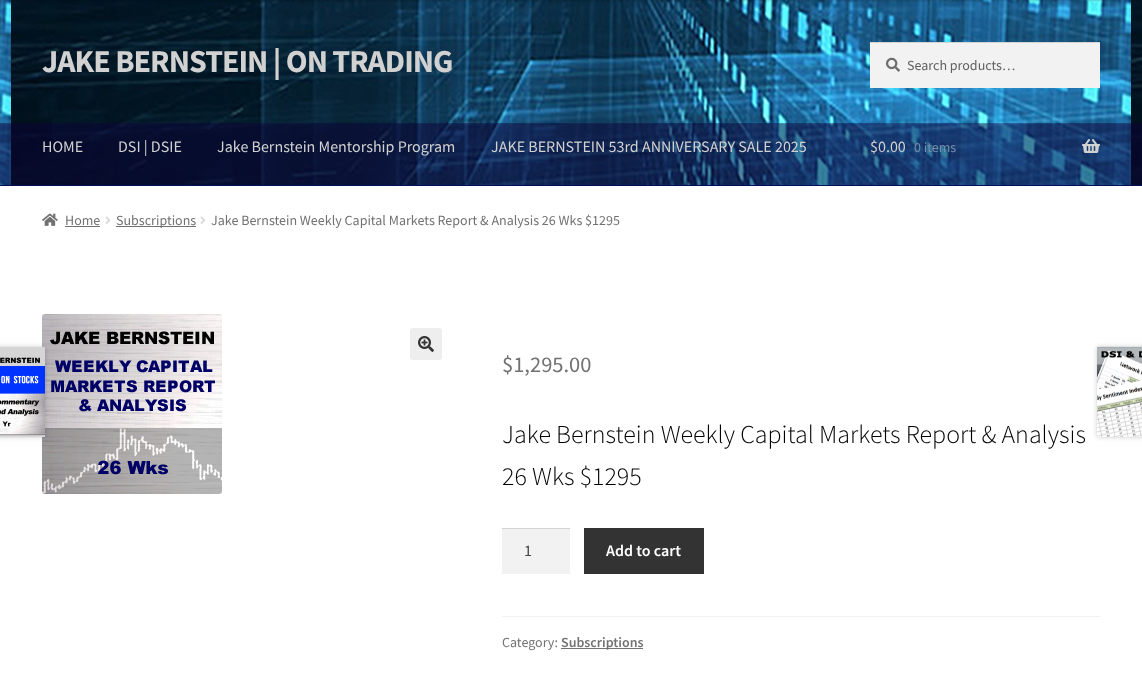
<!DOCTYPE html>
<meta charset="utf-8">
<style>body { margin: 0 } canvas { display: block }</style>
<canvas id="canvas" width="1142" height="693"></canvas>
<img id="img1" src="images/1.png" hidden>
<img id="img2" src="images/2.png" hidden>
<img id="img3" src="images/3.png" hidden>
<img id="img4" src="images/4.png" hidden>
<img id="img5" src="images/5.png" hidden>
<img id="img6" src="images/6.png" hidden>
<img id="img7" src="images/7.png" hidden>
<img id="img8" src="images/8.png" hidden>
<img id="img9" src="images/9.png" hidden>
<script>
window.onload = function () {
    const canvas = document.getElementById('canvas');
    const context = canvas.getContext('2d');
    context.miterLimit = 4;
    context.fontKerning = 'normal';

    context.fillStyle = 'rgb(255, 255, 255)';
    context.fillRect(0, 0, 1142, 693);
    context.drawImage(document.getElementById('img1'), 0, 0, 1142, 185);
    context.fillStyle = 'rgba(0, 0, 0, 0.2)';
    context.filter = 'blur(1px)';
    context.beginPath();
    context.rect(0, -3, 1142, 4);
    context.fill();
    context.filter = 'none';
    context.fillStyle = 'rgb(0, 17, 94)';
    context.fillRect(0, 185, 1142, 1);
    context.fillStyle = 'rgb(242, 242, 242)';
    context.fillRect(870, 43, 230, 45);
    context.drawImage(document.getElementById('img2'), 886, 57, 14, 15);
    context.fillStyle = 'rgb(212, 212, 212)';
    context.fillRect(870, 42, 230, 1);
    context.drawImage(document.getElementById('img3'), 1082, 139, 18, 14);
    context.drawImage(document.getElementById('img4'), 42, 213, 16, 13);
    context.fillStyle = 'rgb(114, 114, 114)';
    context.fillRect(65, 226, 35, 1);
    context.drawImage(document.getElementById('img5'), 105, 216, 6, 8);
    context.fillRect(116, 226, 80, 1);
    context.drawImage(document.getElementById('img5'), 200, 216, 6, 8);
    context.drawImage(document.getElementById('img6'), 42, 314, 180, 180);
    context.fillStyle = 'rgb(238, 238, 238)';
    context.beginPath();
    context.roundRect(410, 328, 32, 32, 3);
    context.fill();
    context.drawImage(document.getElementById('img7'), 418, 336, 16, 16);
    context.fillStyle = 'rgba(0, 0, 0, 0.2)';
    context.filter = 'blur(2.5px)';
    context.beginPath();
    context.rect(-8, 347, 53, 90);
    context.fill();
    context.filter = 'none';
    context.drawImage(document.getElementById('img8'), 0, 347, 45, 90);
    context.filter = 'blur(2.5px)';
    context.beginPath();
    context.rect(1097, 347, 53, 90);
    context.fill();
    context.filter = 'none';
    context.drawImage(document.getElementById('img9'), 1097, 346, 45, 91);
    context.fillStyle = 'rgb(242, 242, 242)';
    context.fillRect(502, 529, 68, 45);
    context.fillStyle = 'rgb(212, 212, 212)';
    context.fillRect(502, 528, 68, 1);
    context.fillStyle = 'rgb(51, 51, 51)';
    context.fillRect(584, 528, 120, 46);
    context.fillStyle = 'rgb(242, 242, 242)';
    context.fillRect(502, 616, 598, 1);
    context.fillStyle = 'rgb(114, 114, 114)';
    context.fillRect(561, 648, 82, 1);
    context.letterSpacing = '-1px';
    context.font = 'bold 32px Source Sans Pro';
    context.fillStyle = 'rgb(209, 209, 209)';
    context.fillText('JAKE BERNSTEIN | ON TRADING', 42, 72);
    context.letterSpacing = '0px';
    context.font = '14px Source Sans Pro';
    context.fillStyle = 'rgb(97, 97, 97)';
    context.fillText('Search products…', 907, 70);
    context.font = '16px Source Sans Pro';
    context.fillStyle = 'rgb(209, 209, 209)';
    context.fillText('HOME', 42, 152);
    context.fillText('DSI | DSIE', 118, 152);
    context.fillText('Jake Bernstein Mentorship Program', 217, 152);
    context.fillText('JAKE BERNSTEIN 53rd ANNIVERSARY SALE 2025', 491, 152);
    context.fillText('$0.00', 870, 152);
    context.font = '14px Source Sans Pro';
    context.fillStyle = 'rgb(119, 142, 167)';
    context.fillText('0 items', 914, 152);
    context.fillStyle = 'rgb(114, 114, 114)';
    context.fillText('Home', 65, 225);
    context.fillText('Subscriptions', 116, 225);
    context.fillText('Jake Bernstein Weekly Capital Markets Report & Analysis 26 Wks $1295', 211, 225);
    context.font = '22.5px Source Sans Pro';
    context.fillText('$1,295.00', 502, 372);
    context.font = '300 25.9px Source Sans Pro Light';
    context.fillStyle = 'rgb(0, 0, 0)';
    context.fillText('Jake Bernstein Weekly Capital Markets Report & Analysis', 502, 443);
    context.fillText('26 Wks $1295', 502, 485);
    context.font = '16px Source Sans Pro';
    context.fillStyle = 'rgb(67, 69, 75)';
    context.fillText('1', 524, 556);
    context.font = '600 16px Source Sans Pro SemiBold';
    context.fillStyle = 'rgb(255, 255, 255)';
    context.fillText('Add to cart', 606, 556);
    context.font = '14px Source Sans Pro';
    context.fillStyle = 'rgb(114, 114, 114)';
    context.fillText('Category:', 502, 647);
    context.font = '600 14px Source Sans Pro SemiBold';
    context.fillText('Subscriptions', 561, 647);
};
</script>
